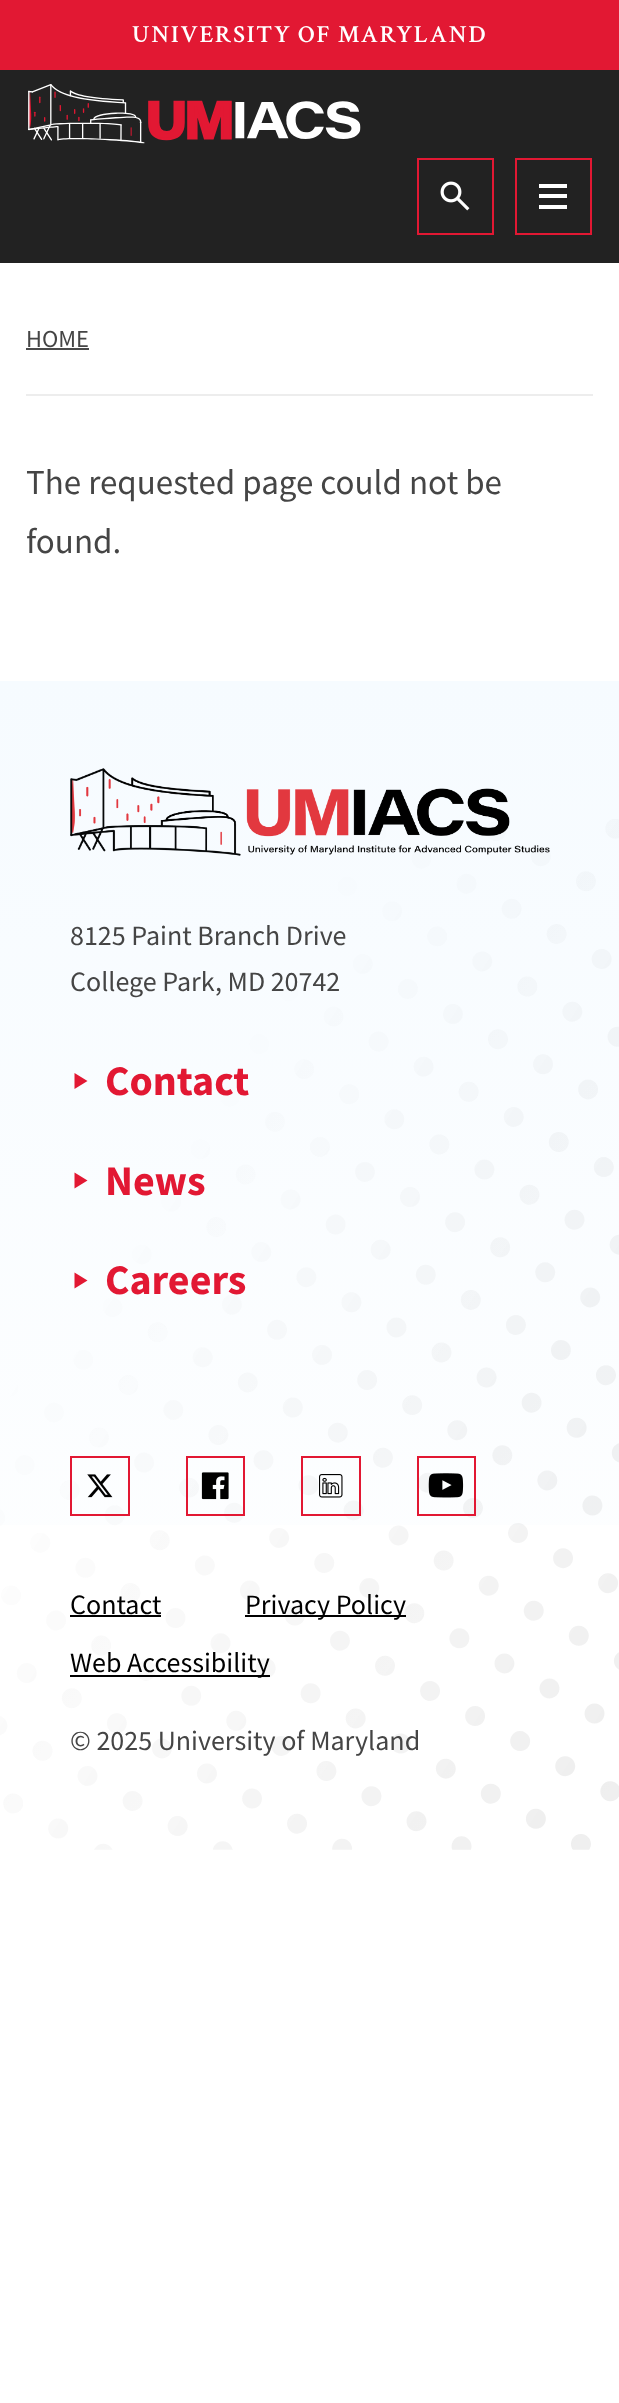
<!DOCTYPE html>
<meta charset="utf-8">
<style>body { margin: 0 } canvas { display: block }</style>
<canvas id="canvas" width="619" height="2403"></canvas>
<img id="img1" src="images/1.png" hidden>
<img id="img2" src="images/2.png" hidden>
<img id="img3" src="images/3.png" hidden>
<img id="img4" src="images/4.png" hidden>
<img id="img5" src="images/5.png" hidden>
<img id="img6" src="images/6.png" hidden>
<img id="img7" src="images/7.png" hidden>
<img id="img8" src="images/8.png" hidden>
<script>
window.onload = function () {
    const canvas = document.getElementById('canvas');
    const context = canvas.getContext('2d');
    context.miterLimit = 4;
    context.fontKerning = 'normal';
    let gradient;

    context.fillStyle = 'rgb(255, 255, 255)';
    context.fillRect(0, 0, 619, 2403);
    context.fillStyle = 'rgb(226, 24, 51)';
    context.fillRect(0, 0, 619, 70);
    context.fillStyle = 'rgb(34, 34, 34)';
    context.fillRect(0, 70, 619, 193);
    context.drawImage(document.getElementById('img1'), 28, 84, 333, 60);
    context.strokeStyle = 'rgb(226, 24, 51)';
    context.lineWidth = 2;
    context.strokeRect(418, 159, 75, 75);
    context.drawImage(document.getElementById('img2'), 440, 181, 30, 30);
    context.strokeRect(516, 159, 75, 75);
    context.fillStyle = 'rgb(255, 255, 255)';
    context.fillRect(539, 184, 28, 4);
    context.fillRect(539, 194, 28, 4);
    context.fillRect(539, 205, 28, 4);
    context.fillStyle = 'rgb(237, 237, 237)';
    context.fillRect(26, 394, 567, 2);
    context.fillStyle = 'rgb(74, 74, 74)';
    context.fillRect(26, 348, 63, 2);
    gradient = context.createLinearGradient(310, 681, 310, 1850);
    gradient.addColorStop(0, 'rgb(246, 251, 255)');
    gradient.addColorStop(1, 'rgb(255, 255, 255)');
    context.fillStyle = gradient;
    context.fillRect(0, 681, 619, 844);
    context.drawImage(document.getElementById('img3'), 0, 819, 619, 1031);
    context.drawImage(document.getElementById('img4'), 70, 768, 480, 88);
    context.fillStyle = 'rgb(226, 24, 51)';
    context.beginPath();
    context.moveTo(74.5, 1073);
    context.lineTo(87.5, 1081);
    context.lineTo(74.5, 1089);
    context.closePath();
    context.fill();
    context.beginPath();
    context.moveTo(74.5, 1172.5);
    context.lineTo(87.5, 1180.5);
    context.lineTo(74.5, 1188.5);
    context.closePath();
    context.fill();
    context.beginPath();
    context.moveTo(74.5, 1272.5);
    context.lineTo(87.5, 1280.5);
    context.lineTo(74.5, 1288.5);
    context.closePath();
    context.fill();
    context.strokeRect(71, 1457, 58, 58);
    context.drawImage(document.getElementById('img5'), 87, 1474, 26, 24);
    context.strokeRect(187, 1457, 57, 58);
    context.drawImage(document.getElementById('img6'), 201, 1472, 28, 28);
    context.strokeRect(302, 1457, 58, 58);
    context.drawImage(document.getElementById('img7'), 319, 1474, 24, 24);
    context.strokeRect(418, 1457, 57, 58);
    context.drawImage(document.getElementById('img8'), 428, 1473, 36, 25);
    context.fillStyle = 'rgb(0, 0, 0)';
    context.fillRect(70, 1615, 91, 2);
    context.fillRect(245, 1615, 161, 2);
    context.fillRect(70, 1675, 200, 2);
    context.letterSpacing = '1.75px';
    context.font = '600 24.5px Crimson Text';
    context.fillStyle = 'rgb(255, 255, 255)';
    context.fillText('UNIVERSITY OF MARYLAND', 132, 42);
    context.letterSpacing = '0px';
    context.font = '24.5px Source Sans Pro';
    context.fillStyle = 'rgb(69, 69, 69)';
    context.fillText('HOME', 26, 347);
    context.font = '35px Source Sans Pro';
    context.fillText('The requested page could not be', 26, 494);
    context.fillText('found.', 26, 553);
    context.font = '28px Source Sans Pro';
    context.fillText('8125 Paint Branch Drive', 70, 945);
    context.fillText('College Park, MD 20742', 70, 991);
    context.font = 'bold 42px Source Sans Pro';
    context.fillStyle = 'rgb(226, 24, 51)';
    context.fillText('Contact', 105, 1095);
    context.fillText('News', 105, 1195);
    context.fillText('Careers', 105, 1294);
    context.font = '28px Source Sans Pro';
    context.fillStyle = 'rgb(0, 0, 0)';
    context.fillText('Contact', 70, 1614);
    context.fillText('Privacy Policy', 245, 1614);
    context.fillText('Web Accessibility', 70, 1672);
    context.fillStyle = 'rgb(69, 69, 69)';
    context.fillText('© 2025 University of Maryland', 70, 1750);
};
</script>
